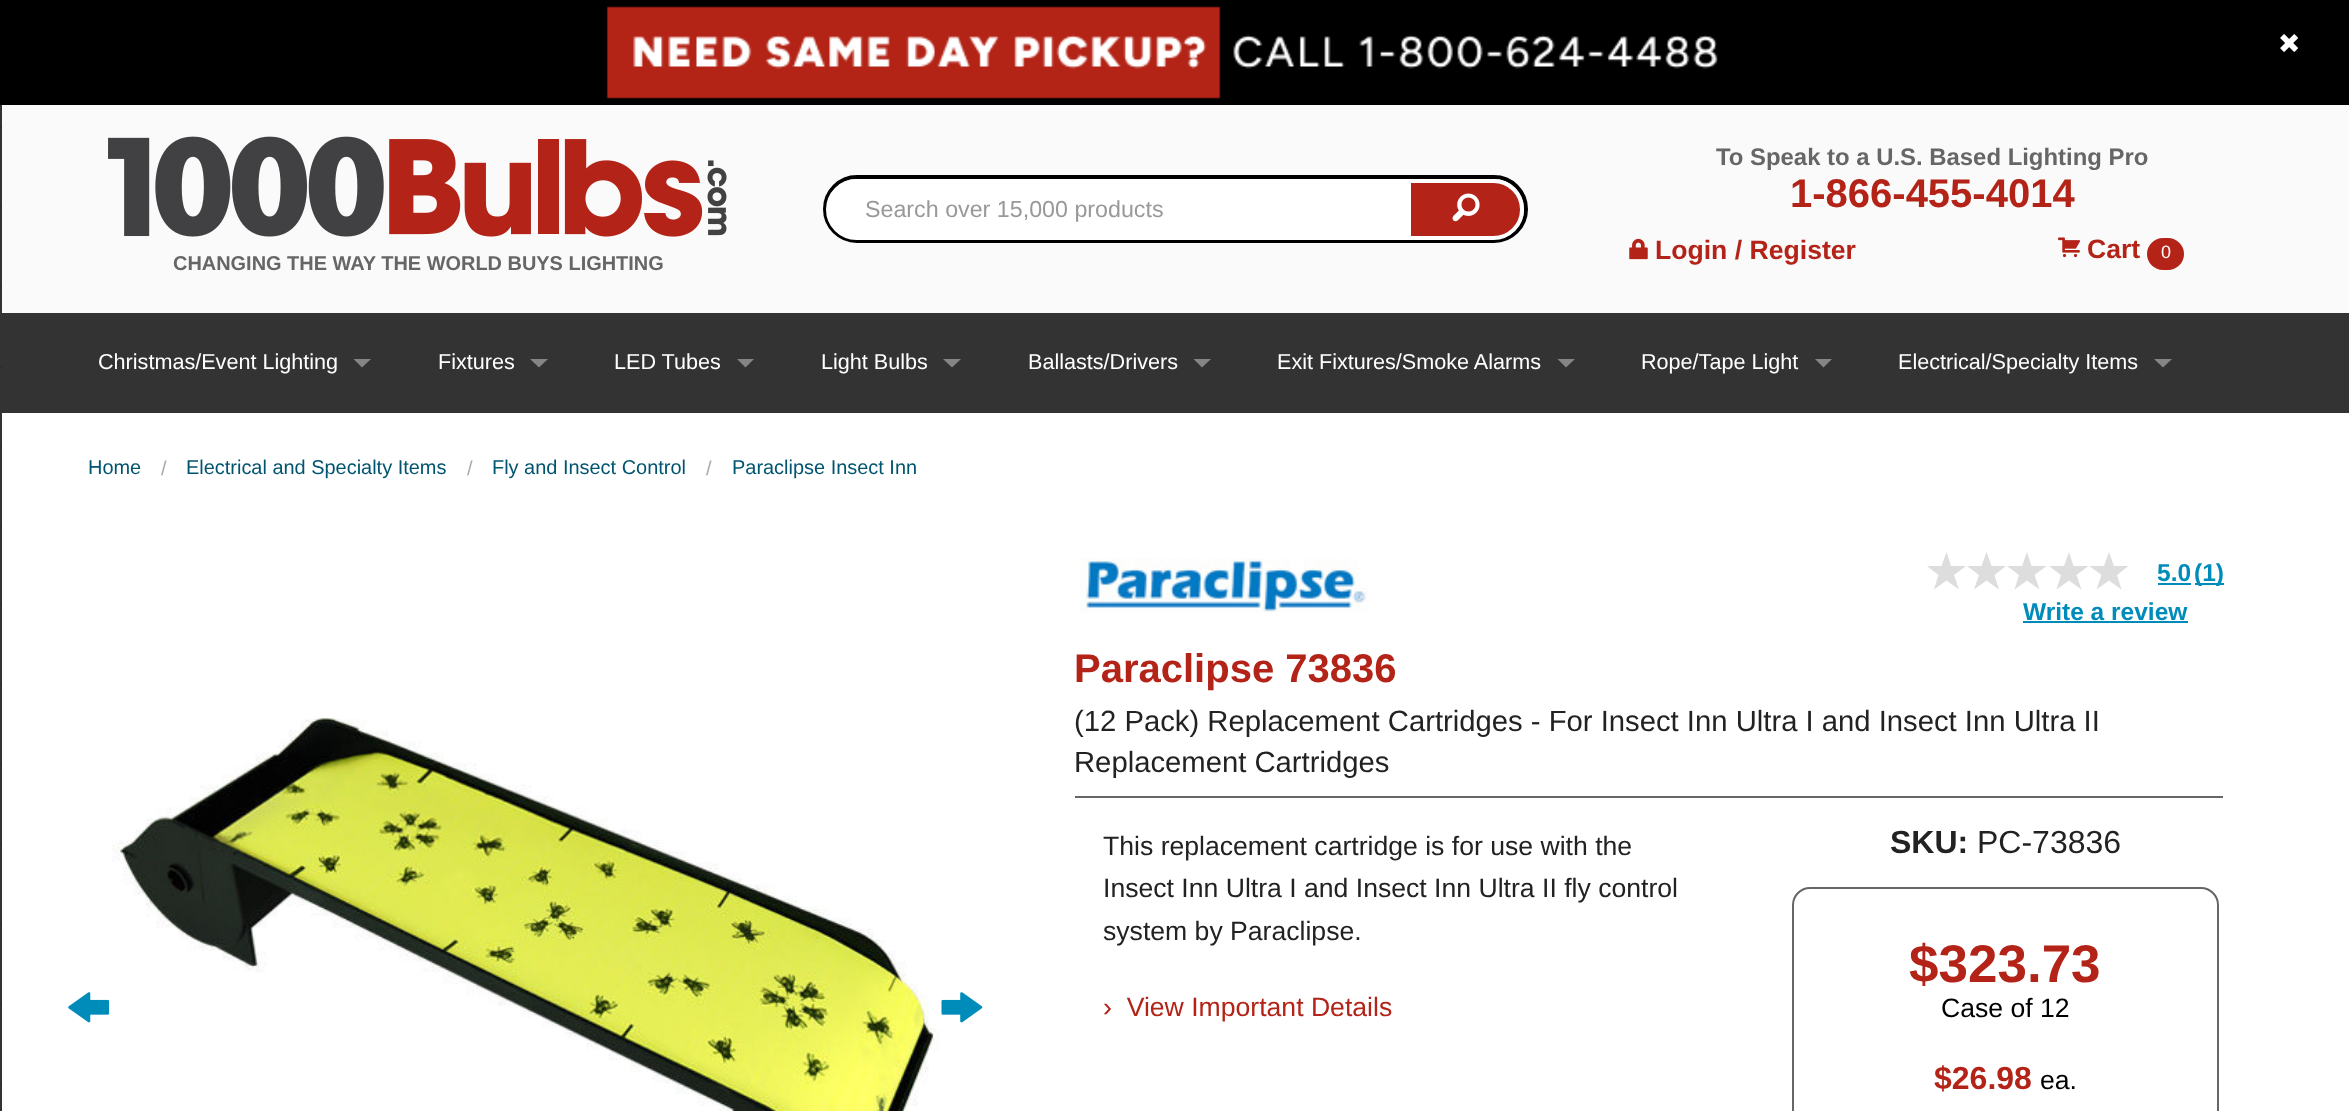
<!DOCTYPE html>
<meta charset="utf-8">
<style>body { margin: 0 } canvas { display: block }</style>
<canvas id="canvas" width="2349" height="1111"></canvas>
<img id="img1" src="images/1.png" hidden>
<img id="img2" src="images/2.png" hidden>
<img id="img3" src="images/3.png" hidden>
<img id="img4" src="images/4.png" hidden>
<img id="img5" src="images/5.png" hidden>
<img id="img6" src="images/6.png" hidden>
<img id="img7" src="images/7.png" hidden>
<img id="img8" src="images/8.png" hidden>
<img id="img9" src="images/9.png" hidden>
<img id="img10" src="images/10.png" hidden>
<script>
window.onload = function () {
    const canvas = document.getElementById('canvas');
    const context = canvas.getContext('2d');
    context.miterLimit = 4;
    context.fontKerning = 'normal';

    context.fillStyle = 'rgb(255, 255, 255)';
    context.fillRect(0, 0, 2349, 1111);
    context.fillStyle = 'rgb(0, 0, 0)';
    context.fillRect(0, 0, 2349, 105);
    context.drawImage(document.getElementById('img1'), 606, 6, 1112, 93);
    context.drawImage(document.getElementById('img2'), 2280, 34, 18, 18);
    context.fillStyle = 'rgb(51, 51, 51)';
    context.fillRect(0, 105, 2, 1006);
    context.fillStyle = 'rgb(46, 46, 46)';
    context.fillRect(0, 126, 2, 2);
    context.fillRect(0, 205, 2, 2);
    context.fillRect(0, 285, 2, 2);
    context.fillRect(0, 366, 2, 2);
    context.fillRect(0, 445, 2, 2);
    context.fillRect(0, 525, 2, 2);
    context.fillRect(0, 604, 2, 2);
    context.fillRect(0, 684, 2, 2);
    context.fillRect(0, 763, 2, 2);
    context.fillRect(0, 844, 2, 2);
    context.fillRect(0, 924, 2, 2);
    context.fillRect(0, 1003, 2, 2);
    context.fillRect(0, 1083, 2, 2);
    context.fillStyle = 'rgb(250, 250, 250)';
    context.fillRect(2, 105, 2347, 208);
    context.beginPath();
    context.roundRect(825, 177, 701, 64, 32);
    context.strokeStyle = 'rgb(0, 0, 0)';
    context.lineWidth = 4;
    context.stroke();
    context.fillStyle = 'rgb(255, 255, 255)';
    context.beginPath();
    context.roundRect(828, 181, 577, 57, [28.5, 0, 0, 28.5]);
    context.fill();
    context.strokeStyle = 'rgb(255, 255, 255)';
    context.stroke();
    context.fillStyle = 'rgb(179, 35, 23)';
    context.beginPath();
    context.roundRect(1409, 181, 113, 57, [0, 28.5, 28.5, 0]);
    context.fill();
    context.stroke();
    context.drawImage(document.getElementById('img3'), 1452, 193, 28, 29);
    context.drawImage(document.getElementById('img4'), 1629, 238, 19, 22);
    context.drawImage(document.getElementById('img5'), 2058, 237, 23, 21);
    context.beginPath();
    context.roundRect(2147, 238, 37, 32, 16);
    context.fill();
    context.drawImage(document.getElementById('img6'), 108, 136, 619, 101);
    context.fillStyle = 'rgb(51, 51, 51)';
    context.fillRect(2, 313, 2347, 100);
    context.fillStyle = 'rgb(133, 133, 133)';
    context.beginPath();
    context.moveTo(353.5, 359);
    context.lineTo(371, 359);
    context.lineTo(362, 367.5);
    context.closePath();
    context.fill();
    context.beginPath();
    context.moveTo(530, 359);
    context.lineTo(548, 359);
    context.lineTo(539, 367.5);
    context.closePath();
    context.fill();
    context.beginPath();
    context.moveTo(737, 359);
    context.lineTo(754, 359);
    context.lineTo(745.5, 367.5);
    context.closePath();
    context.fill();
    context.beginPath();
    context.moveTo(943, 359);
    context.lineTo(961, 359);
    context.lineTo(952, 367.5);
    context.closePath();
    context.fill();
    context.beginPath();
    context.moveTo(1193.5, 359);
    context.lineTo(1211, 359);
    context.lineTo(1202, 367.5);
    context.closePath();
    context.fill();
    context.beginPath();
    context.moveTo(1557.5, 359);
    context.lineTo(1575, 359);
    context.lineTo(1566, 367.5);
    context.closePath();
    context.fill();
    context.beginPath();
    context.moveTo(1815, 359);
    context.lineTo(1832, 359);
    context.lineTo(1823.5, 367.5);
    context.closePath();
    context.fill();
    context.beginPath();
    context.moveTo(2154, 359);
    context.lineTo(2172, 359);
    context.lineTo(2163, 367.5);
    context.closePath();
    context.fill();
    context.drawImage(document.getElementById('img7'), 68, 992, 42, 31);
    context.drawImage(document.getElementById('img8'), 112, 718, 828, 393);
    context.drawImage(document.getElementById('img9'), 941, 992, 42, 31);
    context.drawImage(document.getElementById('img10'), 1080, 558, 289, 55);
    context.fillStyle = 'rgb(221, 221, 221)';
    context.beginPath();
    context.moveTo(1966, 566);
    context.lineTo(1951, 566);
    context.lineTo(1946.5, 552);
    context.lineTo(1941.5, 566);
    context.lineTo(1927, 566);
    context.lineTo(1938.5, 575);
    context.lineTo(1934, 589.5);
    context.lineTo(1946.5, 580.5);
    context.lineTo(1959, 589.5);
    context.lineTo(1954, 575);
    context.closePath();
    context.fill();
    context.beginPath();
    context.moveTo(2006, 566);
    context.lineTo(1991.5, 566);
    context.lineTo(1986.5, 552);
    context.lineTo(1981.5, 566);
    context.lineTo(1967, 566);
    context.lineTo(1979, 575);
    context.lineTo(1974, 589.5);
    context.lineTo(1986.5, 580.5);
    context.lineTo(1999, 589.5);
    context.lineTo(1994.5, 575);
    context.closePath();
    context.fill();
    context.beginPath();
    context.moveTo(2046.5, 566);
    context.lineTo(2031.5, 566);
    context.lineTo(2027, 552);
    context.lineTo(2022, 566);
    context.lineTo(2007, 566);
    context.lineTo(2019, 575);
    context.lineTo(2014.5, 589.5);
    context.lineTo(2027, 580.5);
    context.lineTo(2039.5, 589.5);
    context.lineTo(2034.5, 575);
    context.closePath();
    context.fill();
    context.beginPath();
    context.moveTo(2088.5, 566);
    context.lineTo(2073.5, 566);
    context.lineTo(2069, 552);
    context.lineTo(2064, 566);
    context.lineTo(2049, 566);
    context.lineTo(2061, 575);
    context.lineTo(2056.5, 589.5);
    context.lineTo(2069, 580.5);
    context.lineTo(2081.5, 589.5);
    context.lineTo(2076.5, 575);
    context.closePath();
    context.fill();
    context.beginPath();
    context.moveTo(2128.5, 566);
    context.lineTo(2114, 566);
    context.lineTo(2109, 552);
    context.lineTo(2104, 566);
    context.lineTo(2089.5, 566);
    context.lineTo(2101.5, 575);
    context.lineTo(2096.5, 589.5);
    context.lineTo(2109, 580.5);
    context.lineTo(2121.5, 589.5);
    context.lineTo(2117, 575);
    context.closePath();
    context.fill();
    context.fillStyle = 'rgb(0, 140, 186)';
    context.fillRect(2158, 583, 33, 2);
    context.fillRect(2195, 583, 29, 2);
    context.fillRect(2023, 621, 165, 2);
    context.fillStyle = 'rgb(102, 102, 102)';
    context.fillRect(1075, 796, 1148, 2);
    context.beginPath();
    context.roundRect(1793, 888, 425, 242, 17);
    context.strokeStyle = 'rgb(102, 102, 102)';
    context.lineWidth = 2;
    context.stroke();
    context.font = '23.25px Liberation Sans';
    context.fillStyle = 'rgb(153, 153, 153)';
    context.fillText('Search over 15,000 products', 865, 217);
    context.font = 'bold 23.9px Liberation Sans';
    context.fillStyle = 'rgb(102, 102, 102)';
    context.fillText('To Speak to a U.S. Based Lighting Pro', 1716, 165);
    context.font = 'bold 40px Liberation Sans';
    context.fillStyle = 'rgb(179, 35, 23)';
    context.fillText('1-866-455-4014', 1790, 207);
    context.font = 'bold 26.6px Liberation Sans';
    context.fillText('Login / Register', 1655, 259);
    context.fillText('Cart', 2087, 258);
    context.font = '18px Liberation Sans';
    context.fillStyle = 'rgb(255, 255, 255)';
    context.fillText('0', 2161, 258);
    context.font = 'bold 19.95px Liberation Sans';
    context.fillStyle = 'rgb(102, 102, 102)';
    context.fillText('CHANGING THE WAY THE WORLD BUYS LIGHTING', 173, 270);
    context.font = '21.6px Liberation Sans';
    context.fillStyle = 'rgb(255, 255, 255)';
    context.fillText('Christmas/Event Lighting', 98, 369);
    context.fillText('Fixtures', 438, 369);
    context.fillText('LED Tubes', 614, 369);
    context.fillText('Light Bulbs', 821, 369);
    context.fillText('Ballasts/Drivers', 1028, 369);
    context.fillText('Exit Fixtures/Smoke Alarms', 1277, 369);
    context.fillText('Rope/Tape Light', 1641, 369);
    context.fillText('Electrical/Specialty Items', 1898, 369);
    context.font = '19.95px Liberation Sans';
    context.fillStyle = 'rgb(0, 84, 111)';
    context.fillText('Home', 88, 474);
    context.fillStyle = 'rgb(170, 170, 170)';
    context.fillText('/', 161, 475);
    context.fillStyle = 'rgb(0, 84, 111)';
    context.fillText('Electrical and Specialty Items', 186, 474);
    context.fillStyle = 'rgb(170, 170, 170)';
    context.fillText('/', 467, 475);
    context.fillStyle = 'rgb(0, 84, 111)';
    context.fillText('Fly and Insect Control', 492, 474);
    context.fillStyle = 'rgb(170, 170, 170)';
    context.fillText('/', 706, 475);
    context.fillStyle = 'rgb(0, 84, 111)';
    context.fillText('Paraclipse Insect Inn', 732, 474);
    context.font = 'bold 24.5px Liberation Sans';
    context.fillStyle = 'rgb(0, 140, 186)';
    context.fillText('5.0', 2157, 581);
    context.fillText('(1)', 2194, 581);
    context.fillText('Write a review', 2023, 620);
    context.font = 'bold 40px Liberation Sans';
    context.fillStyle = 'rgb(179, 35, 23)';
    context.fillText('Paraclipse 73836', 1074, 682);
    context.font = '29.25px Liberation Sans';
    context.fillStyle = 'rgb(34, 34, 34)';
    context.fillText('(12 Pack) Replacement Cartridges - For Insect Inn Ultra I and Insect Inn Ultra II', 1074, 731);
    context.fillText('Replacement Cartridges', 1074, 772);
    context.font = '26.6px Liberation Sans';
    context.fillText('This replacement cartridge is for use with the', 1103, 855);
    context.fillText('Insect Inn Ultra I and Insect Inn Ultra II fly control', 1103, 897);
    context.fillText('system by Paraclipse.', 1103, 940);
    context.fillStyle = 'rgb(179, 35, 23)';
    context.fillText('›  View Important Details', 1103, 1016);
    context.font = 'bold 32px Liberation Sans';
    context.fillStyle = 'rgb(34, 34, 34)';
    context.fillText('SKU:', 1890, 853);
    context.font = '32px Liberation Sans';
    context.fillText('PC-73836', 1977, 853);
    context.font = 'bold 53px Liberation Sans';
    context.fillStyle = 'rgb(179, 35, 23)';
    context.fillText('$323.73', 1909, 982);
    context.font = '26.6px Liberation Sans';
    context.fillStyle = 'rgb(0, 0, 0)';
    context.fillText('Case of 12', 1941, 1017);
    context.font = 'bold 32px Liberation Sans';
    context.fillStyle = 'rgb(179, 35, 23)';
    context.fillText('$26.98', 1934, 1089);
    context.font = '26.6px Liberation Sans';
    context.fillStyle = 'rgb(0, 0, 0)';
    context.fillText('ea.', 2040, 1089);
};
</script>
